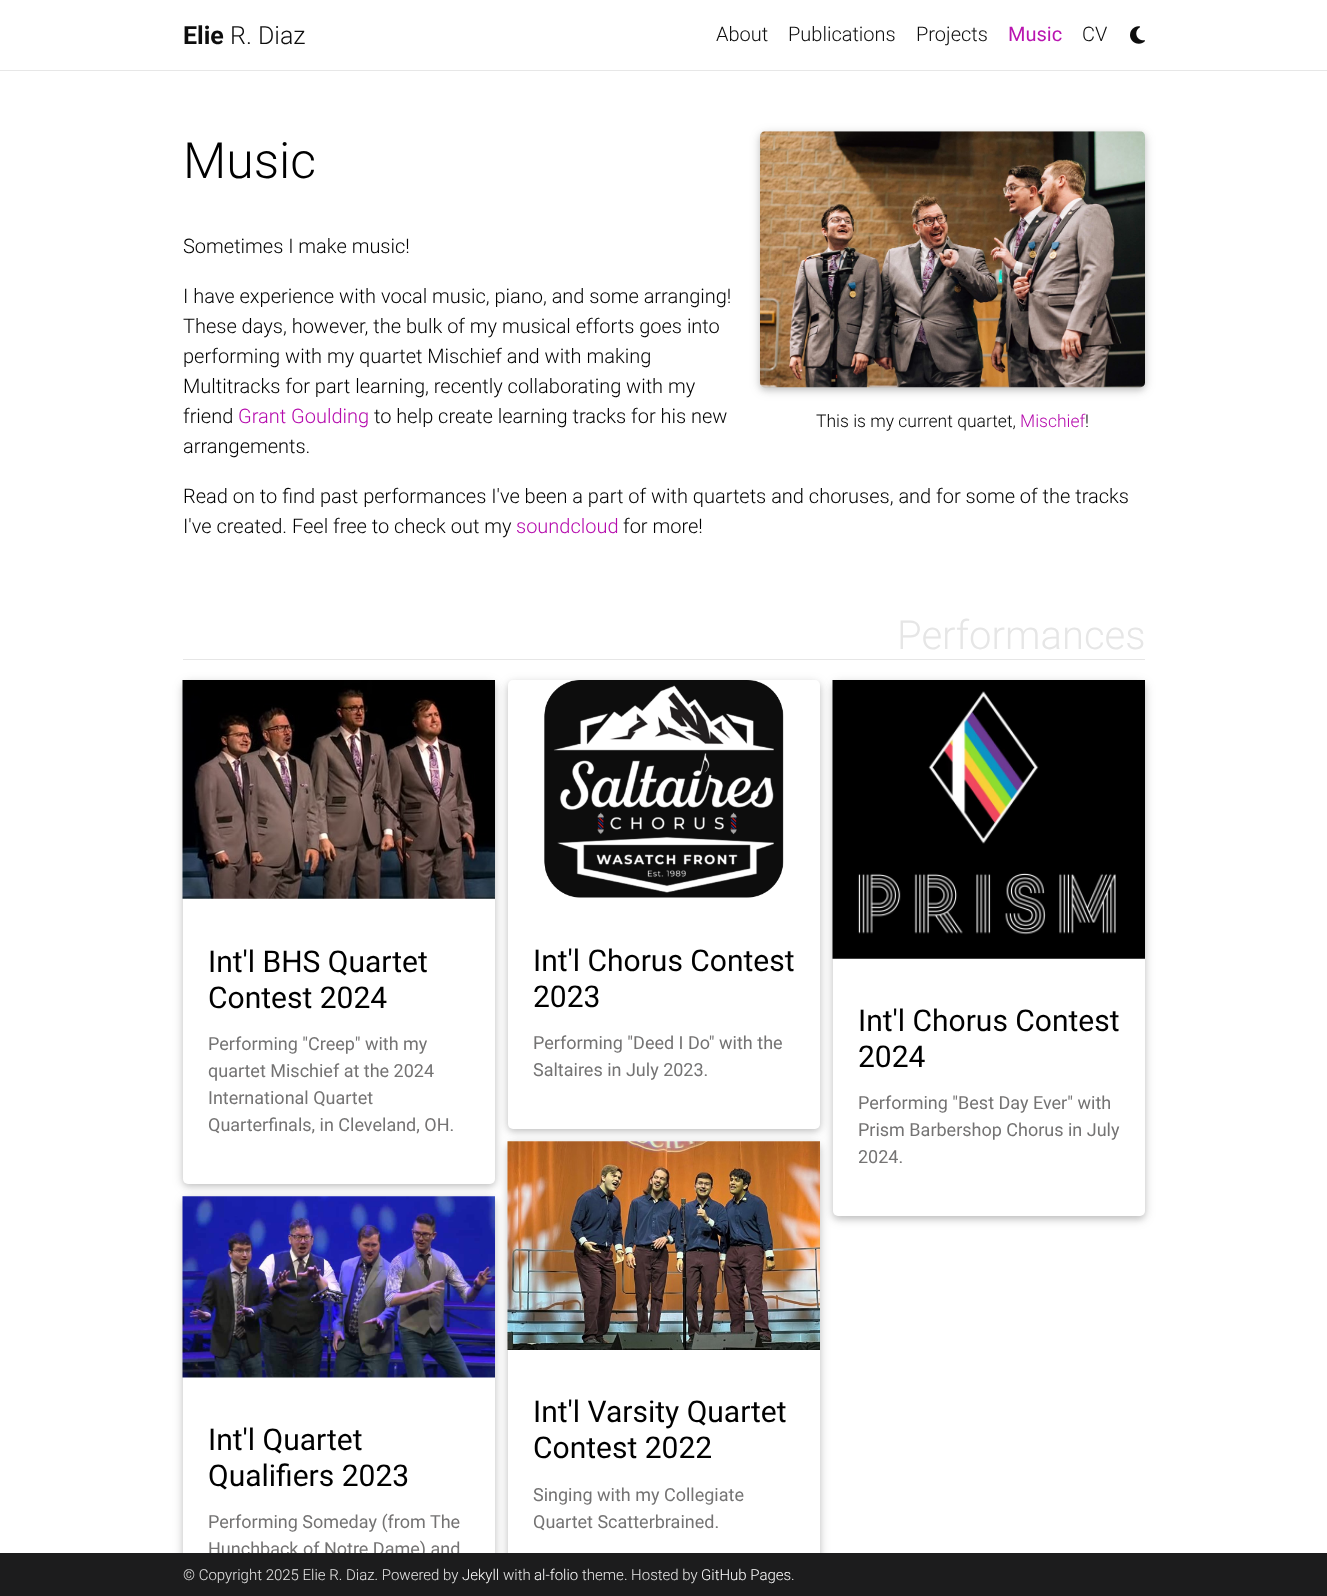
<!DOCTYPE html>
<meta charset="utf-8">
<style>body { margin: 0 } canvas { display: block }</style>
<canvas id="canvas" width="1327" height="1596"></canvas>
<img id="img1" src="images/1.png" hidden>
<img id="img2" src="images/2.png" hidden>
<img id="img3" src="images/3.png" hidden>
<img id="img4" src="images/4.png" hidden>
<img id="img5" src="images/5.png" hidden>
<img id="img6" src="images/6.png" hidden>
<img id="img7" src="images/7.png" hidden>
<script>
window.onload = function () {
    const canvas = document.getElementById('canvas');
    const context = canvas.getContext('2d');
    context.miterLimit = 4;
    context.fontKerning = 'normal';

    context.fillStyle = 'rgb(255, 255, 255)';
    context.fillRect(0, 0, 1327, 1596);
    context.fillStyle = 'rgb(231, 231, 231)';
    context.fillRect(0, 70, 1327, 1);
    context.drawImage(document.getElementById('img1'), 1130, 26, 15, 18);
    context.fillStyle = 'rgba(0, 0, 0, 0.12)';
    context.filter = 'blur(6px)';
    context.beginPath();
    context.roundRect(760, 134, 385, 256, 5);
    context.fill();
    context.filter = 'none';
    context.fillStyle = 'rgba(0, 0, 0, 0.16)';
    context.filter = 'blur(3px)';
    context.beginPath();
    context.roundRect(760, 134, 385, 256, 5);
    context.fill();
    context.filter = 'none';
    context.drawImage(document.getElementById('img2'), 760, 131, 385, 257);
    context.fillStyle = 'rgb(230, 230, 230)';
    context.fillRect(183, 659, 962, 1);
    context.fillStyle = 'rgba(0, 0, 0, 0.12)';
    context.filter = 'blur(6px)';
    context.beginPath();
    context.roundRect(183, 683, 312, 503, 5);
    context.fill();
    context.filter = 'none';
    context.fillStyle = 'rgba(0, 0, 0, 0.16)';
    context.filter = 'blur(3px)';
    context.beginPath();
    context.roundRect(183, 683, 312, 503, 5);
    context.fill();
    context.filter = 'none';
    context.fillStyle = 'rgb(255, 255, 255)';
    context.beginPath();
    context.roundRect(183, 680, 312, 504, 5);
    context.fill();
    context.drawImage(document.getElementById('img3'), 182, 680, 313, 219);
    context.fillStyle = 'rgba(0, 0, 0, 0.12)';
    context.filter = 'blur(6px)';
    context.beginPath();
    context.roundRect(508, 683, 312, 448, 5);
    context.fill();
    context.filter = 'none';
    context.fillStyle = 'rgba(0, 0, 0, 0.16)';
    context.filter = 'blur(3px)';
    context.beginPath();
    context.roundRect(508, 683, 312, 448, 5);
    context.fill();
    context.filter = 'none';
    context.fillStyle = 'rgb(255, 255, 255)';
    context.beginPath();
    context.roundRect(508, 680, 312, 449, 5);
    context.fill();
    context.drawImage(document.getElementById('img4'), 544, 680, 240, 218);
    context.fillStyle = 'rgba(0, 0, 0, 0.12)';
    context.filter = 'blur(6px)';
    context.beginPath();
    context.roundRect(833, 683, 312, 536, 5);
    context.fill();
    context.filter = 'none';
    context.fillStyle = 'rgba(0, 0, 0, 0.16)';
    context.filter = 'blur(3px)';
    context.beginPath();
    context.roundRect(833, 683, 312, 536, 5);
    context.fill();
    context.filter = 'none';
    context.fillStyle = 'rgb(255, 255, 255)';
    context.beginPath();
    context.roundRect(833, 680, 312, 536, 5);
    context.fill();
    context.drawImage(document.getElementById('img5'), 832, 680, 313, 279);
    context.fillStyle = 'rgba(0, 0, 0, 0.12)';
    context.filter = 'blur(6px)';
    context.beginPath();
    context.roundRect(183, 1199, 312, 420, 5);
    context.fill();
    context.filter = 'none';
    context.fillStyle = 'rgba(0, 0, 0, 0.16)';
    context.filter = 'blur(3px)';
    context.beginPath();
    context.roundRect(183, 1199, 312, 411, 5);
    context.fill();
    context.filter = 'none';
    context.fillStyle = 'rgb(255, 255, 255)';
    context.beginPath();
    context.roundRect(183, 1196, 312, 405, 5);
    context.fill();
    context.drawImage(document.getElementById('img6'), 182, 1196, 313, 182);
    context.fillStyle = 'rgba(0, 0, 0, 0.12)';
    context.filter = 'blur(6px)';
    context.beginPath();
    context.roundRect(508, 1144, 312, 440, 5);
    context.fill();
    context.filter = 'none';
    context.fillStyle = 'rgba(0, 0, 0, 0.16)';
    context.filter = 'blur(3px)';
    context.beginPath();
    context.roundRect(508, 1144, 312, 440, 5);
    context.fill();
    context.filter = 'none';
    context.fillStyle = 'rgb(255, 255, 255)';
    context.beginPath();
    context.roundRect(508, 1141, 312, 440, 5);
    context.fill();
    context.drawImage(document.getElementById('img7'), 507, 1141, 313, 209);
    context.font = 'bold 25px Roboto';
    context.fillStyle = 'rgb(13, 13, 13)';
    context.fillText('Elie', 183, 44);
    context.font = '300 25px Roboto';
    context.fillText('R. Diaz', 230, 44);
    context.font = '300 20px Roboto';
    context.fillText('About', 716, 41);
    context.fillText('Publications', 788, 41);
    context.fillText('Projects', 916, 41);
    context.font = '20px Roboto';
    context.fillStyle = 'rgb(185, 21, 176)';
    context.fillText('Music', 1008, 41);
    context.font = '300 20px Roboto';
    context.fillStyle = 'rgb(13, 13, 13)';
    context.fillText('CV', 1082, 41);
    context.font = '300 50px Roboto';
    context.fillStyle = 'rgb(0, 0, 0)';
    context.fillText('Music', 183, 178);
    context.font = '300 20px Roboto';
    context.fillText('Sometimes I make music!', 183, 253);
    context.fillText('I have experience with vocal music, piano, and some arranging!', 183, 303);
    context.fillText('These days, however, the bulk of my musical efforts goes into', 183, 333);
    context.fillText('performing with my quartet Mischief and with making', 183, 363);
    context.fillText('Multitracks for part learning, recently collaborating with my', 183, 393);
    context.fillText('friend', 183, 423);
    context.fillStyle = 'rgb(181, 9, 172)';
    context.fillText('Grant Goulding', 238, 423);
    context.fillStyle = 'rgb(0, 0, 0)';
    context.fillText('to help create learning tracks for his new', 374, 423);
    context.fillText('arrangements.', 183, 453);
    context.fillText('Read on to find past performances I\'ve been a part of with quartets and choruses, and for some of the tracks', 183, 503);
    context.fillText('I\'ve created. Feel free to check out my', 183, 533);
    context.fillStyle = 'rgb(181, 9, 172)';
    context.fillText('soundcloud', 516, 533);
    context.fillStyle = 'rgb(0, 0, 0)';
    context.fillText('for more!', 623, 533);
    context.font = '300 17.5px Roboto';
    context.fillText('This is my current quartet,', 816, 427);
    context.fillStyle = 'rgb(181, 9, 172)';
    context.fillText('Mischief', 1020, 427);
    context.fillStyle = 'rgb(0, 0, 0)';
    context.fillText('!', 1085, 427);
    context.font = '300 40px Roboto';
    context.fillStyle = 'rgb(230, 230, 230)';
    context.fillText('Performances', 897, 649);
    context.font = '30px Roboto';
    context.fillStyle = 'rgb(0, 0, 0)';
    context.fillText('Int\'l BHS Quartet', 208, 972);
    context.fillText('Contest 2024', 208, 1008);
    context.font = '18px Roboto';
    context.fillStyle = 'rgb(116, 115, 115)';
    context.fillText('Performing "Creep" with my', 208, 1050);
    context.fillText('quartet Mischief at the 2024', 208, 1077);
    context.fillText('International Quartet', 208, 1104);
    context.fillText('Quarterfinals, in Cleveland, OH.', 208, 1131);
    context.font = '30px Roboto';
    context.fillStyle = 'rgb(0, 0, 0)';
    context.fillText('Int\'l Chorus Contest', 533, 971);
    context.fillText('2023', 533, 1007);
    context.font = '18px Roboto';
    context.fillStyle = 'rgb(116, 115, 115)';
    context.fillText('Performing "Deed I Do" with the', 533, 1049);
    context.fillText('Saltaires in July 2023.', 533, 1076);
    context.font = '30px Roboto';
    context.fillStyle = 'rgb(0, 0, 0)';
    context.fillText('Int\'l Chorus Contest', 858, 1031);
    context.fillText('2024', 858, 1067);
    context.font = '18px Roboto';
    context.fillStyle = 'rgb(116, 115, 115)';
    context.fillText('Performing "Best Day Ever" with', 858, 1109);
    context.fillText('Prism Barbershop Chorus in July', 858, 1136);
    context.fillText('2024.', 858, 1163);
    context.font = '30px Roboto';
    context.fillStyle = 'rgb(0, 0, 0)';
    context.fillText('Int\'l Quartet', 208, 1450);
    context.fillText('Qualifiers 2023', 208, 1486);
    context.font = '18px Roboto';
    context.fillStyle = 'rgb(116, 115, 115)';
    context.fillText('Performing Someday (from The', 208, 1528);
    context.fillText('Hunchback of Notre Dame) and', 208, 1555);
    context.font = '30px Roboto';
    context.fillStyle = 'rgb(0, 0, 0)';
    context.fillText('Int\'l Varsity Quartet', 533, 1422);
    context.fillText('Contest 2022', 533, 1458);
    context.font = '18px Roboto';
    context.fillStyle = 'rgb(116, 115, 115)';
    context.fillText('Singing with my Collegiate', 533, 1501);
    context.fillText('Quartet Scatterbrained.', 533, 1528);
    context.fillStyle = 'rgb(28, 28, 29)';
    context.fillRect(0, 1553, 1327, 43);
    context.font = '300 15px Roboto';
    context.fillStyle = 'rgb(230, 230, 230)';
    context.fillText('© Copyright 2025 Elie R. Diaz. Powered by', 183, 1580);
    context.fillStyle = 'rgb(255, 255, 255)';
    context.fillText('Jekyll', 462, 1580);
    context.fillStyle = 'rgb(230, 230, 230)';
    context.fillText('with', 503, 1580);
    context.fillStyle = 'rgb(255, 255, 255)';
    context.fillText('al-folio', 534, 1580);
    context.fillStyle = 'rgb(230, 230, 230)';
    context.fillText('theme. Hosted by', 582, 1580);
    context.fillStyle = 'rgb(255, 255, 255)';
    context.fillText('GitHub Pages', 701, 1580);
    context.fillStyle = 'rgb(230, 230, 230)';
    context.fillText('.', 791, 1580);
};
</script>
